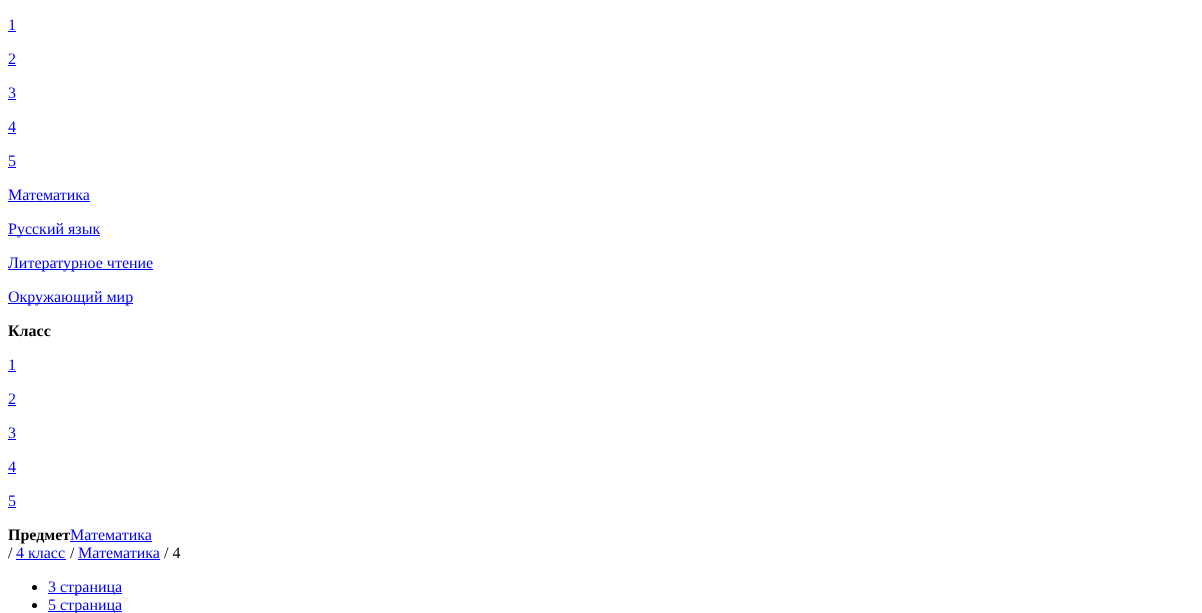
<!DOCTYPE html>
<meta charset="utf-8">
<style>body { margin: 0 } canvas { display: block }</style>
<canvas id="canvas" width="1202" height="613"></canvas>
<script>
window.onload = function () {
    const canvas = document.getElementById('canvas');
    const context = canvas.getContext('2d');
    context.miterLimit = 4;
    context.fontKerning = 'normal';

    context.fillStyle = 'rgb(255, 255, 255)';
    context.fillRect(0, 0, 1202, 613);
    context.fillStyle = 'rgb(0, 0, 238)';
    context.fillRect(8, 31, 8, 1);
    context.fillRect(8, 65, 8, 1);
    context.fillRect(8, 99, 8, 1);
    context.fillRect(8, 133, 8, 1);
    context.fillRect(8, 167, 8, 1);
    context.fillRect(8, 201, 82, 1);
    context.fillRect(8, 235, 92, 1);
    context.fillRect(8, 269, 145, 1);
    context.fillRect(8, 303, 125, 1);
    context.fillRect(8, 371, 8, 1);
    context.fillRect(8, 405, 8, 1);
    context.fillRect(8, 439, 8, 1);
    context.fillRect(8, 473, 8, 1);
    context.fillRect(8, 507, 8, 1);
    context.fillRect(70, 541, 82, 1);
    context.fillRect(16, 559, 50, 1);
    context.fillRect(78, 559, 82, 1);
    context.fillStyle = 'rgb(0, 0, 0)';
    context.beginPath();
    context.arc(34.5, 587.5, 2.5, 0, 2 * Math.PI);
    context.fill();
    context.fillStyle = 'rgb(0, 0, 238)';
    context.fillRect(48, 593, 74, 1);
    context.fillStyle = 'rgb(0, 0, 0)';
    context.beginPath();
    context.arc(34.5, 605.5, 2.5, 0, 2 * Math.PI);
    context.fill();
    context.fillStyle = 'rgb(0, 0, 238)';
    context.fillRect(48, 611, 74, 1);
    context.font = '16px Liberation Serif';
    context.fillText('1', 8, 30);
    context.fillText('2', 8, 64);
    context.fillText('3', 8, 98);
    context.fillText('4', 8, 132);
    context.fillText('5', 8, 166);
    context.fillText('Математика', 8, 200);
    context.fillText('Русский язык', 8, 234);
    context.fillText('Литературное чтение', 8, 268);
    context.fillText('Окружающий мир', 8, 302);
    context.font = 'bold 16px Liberation Serif';
    context.fillStyle = 'rgb(0, 0, 0)';
    context.fillText('Класс', 8, 336);
    context.font = '16px Liberation Serif';
    context.fillStyle = 'rgb(0, 0, 238)';
    context.fillText('1', 8, 370);
    context.fillText('2', 8, 404);
    context.fillText('3', 8, 438);
    context.fillText('4', 8, 472);
    context.fillText('5', 8, 506);
    context.font = 'bold 16px Liberation Serif';
    context.fillStyle = 'rgb(0, 0, 0)';
    context.fillText('Предмет', 8, 540);
    context.font = '16px Liberation Serif';
    context.fillStyle = 'rgb(0, 0, 238)';
    context.fillText('Математика', 70, 540);
    context.fillStyle = 'rgb(0, 0, 0)';
    context.fillText('/', 8, 558);
    context.fillStyle = 'rgb(0, 0, 238)';
    context.fillText('4 класс', 16, 558);
    context.fillStyle = 'rgb(0, 0, 0)';
    context.fillText('/', 70, 558);
    context.fillStyle = 'rgb(0, 0, 238)';
    context.fillText('Математика', 78, 558);
    context.fillStyle = 'rgb(0, 0, 0)';
    context.fillText('/ 4', 164, 558);
    context.fillStyle = 'rgb(0, 0, 238)';
    context.fillText('3 страница', 48, 592);
    context.fillText('5 страница', 48, 610);
};
</script>
